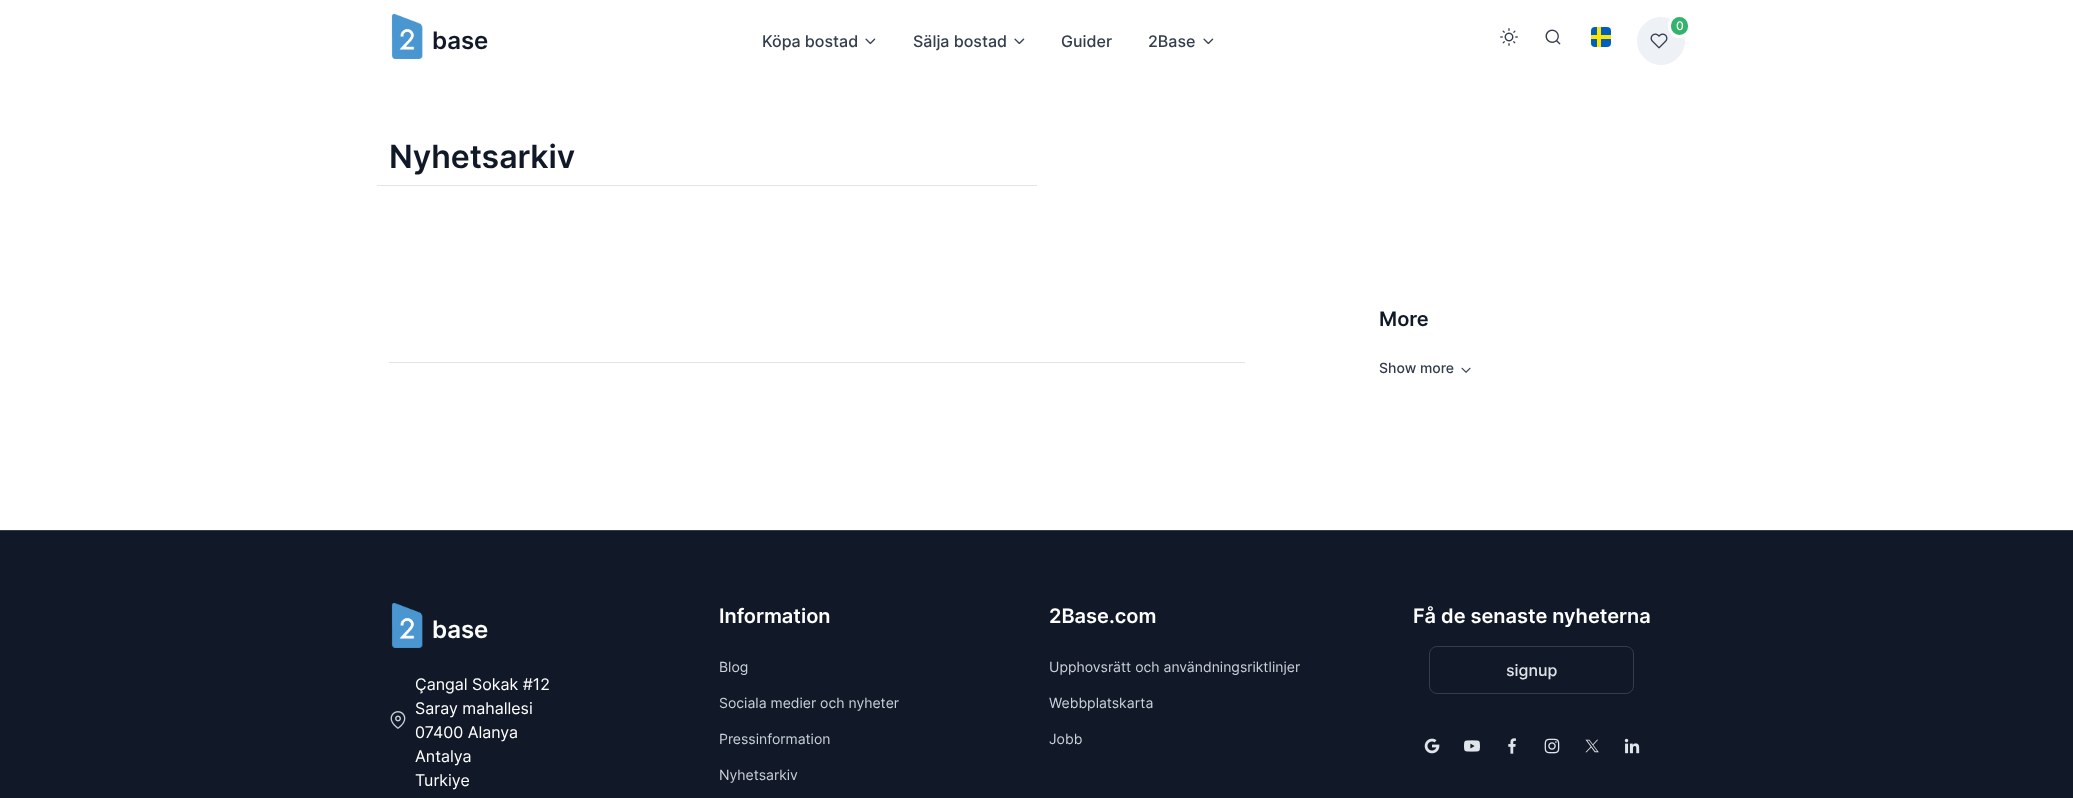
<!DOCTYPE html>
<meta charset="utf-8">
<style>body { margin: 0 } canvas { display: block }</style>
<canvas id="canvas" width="2073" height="798"></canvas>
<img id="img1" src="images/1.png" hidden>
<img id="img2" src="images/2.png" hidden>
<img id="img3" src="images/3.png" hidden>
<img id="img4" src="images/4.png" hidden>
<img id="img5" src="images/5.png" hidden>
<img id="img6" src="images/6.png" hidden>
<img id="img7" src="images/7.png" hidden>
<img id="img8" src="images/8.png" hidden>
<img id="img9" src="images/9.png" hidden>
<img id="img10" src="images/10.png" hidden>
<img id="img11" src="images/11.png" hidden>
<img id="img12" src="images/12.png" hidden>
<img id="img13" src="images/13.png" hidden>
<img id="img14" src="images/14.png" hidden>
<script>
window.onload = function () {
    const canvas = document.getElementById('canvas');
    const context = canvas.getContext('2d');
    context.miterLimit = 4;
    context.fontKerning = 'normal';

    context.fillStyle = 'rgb(255, 255, 255)';
    context.fillRect(0, 0, 2073, 798);
    context.fillStyle = 'rgb(238, 241, 246)';
    context.beginPath();
    context.arc(1661, 41, 23.5, 0, 2 * Math.PI);
    context.fill();
    context.strokeStyle = 'rgb(238, 241, 246)';
    context.stroke();
    context.fillStyle = 'rgb(51, 179, 107)';
    context.beginPath();
    context.roundRect(1669.5, 15.5, 20, 21, 10);
    context.fill();
    context.strokeStyle = 'rgb(255, 255, 255)';
    context.lineWidth = 3;
    context.stroke();
    context.drawImage(document.getElementById('img1'), 1650, 33, 18, 16);
    context.drawImage(document.getElementById('img2'), 1500, 28, 18, 18);
    context.drawImage(document.getElementById('img3'), 1545, 29, 16, 16);
    context.fillStyle = 'rgb(0, 94, 188)';
    context.beginPath();
    context.roundRect(1591, 27, 20, 20, 4);
    context.fill();
    context.fillStyle = 'rgb(255, 230, 0)';
    context.fillRect(1597, 27, 4, 20);
    context.fillRect(1591, 35, 20, 4);
    context.drawImage(document.getElementById('img4'), 391, 14, 32, 45);
    context.drawImage(document.getElementById('img5'), 865, 38, 11, 7);
    context.drawImage(document.getElementById('img5'), 1014, 38, 11, 7);
    context.drawImage(document.getElementById('img5'), 1203, 38, 11, 7);
    context.fillStyle = 'rgb(224, 229, 235)';
    context.fillRect(377, 185, 660, 1);
    context.fillRect(389, 362, 856, 1);
    context.drawImage(document.getElementById('img6'), 1461, 367, 10, 6);
    context.fillStyle = 'rgb(17, 24, 39)';
    context.fillRect(0, 531, 2073, 267);
    context.fillStyle = 'rgb(51, 61, 76)';
    context.fillRect(0, 530, 2073, 1);
    context.drawImage(document.getElementById('img7'), 391, 603, 32, 45);
    context.drawImage(document.getElementById('img8'), 390, 711, 16, 18);
    context.beginPath();
    context.roundRect(1429.5, 646.5, 204, 47, 7.5);
    context.strokeStyle = 'rgb(51, 61, 76)';
    context.lineWidth = 1;
    context.stroke();
    context.drawImage(document.getElementById('img9'), 1424, 738, 16, 16);
    context.drawImage(document.getElementById('img10'), 1464, 740, 16, 12);
    context.drawImage(document.getElementById('img11'), 1508, 738, 8, 16);
    context.drawImage(document.getElementById('img12'), 1544, 738, 16, 16);
    context.drawImage(document.getElementById('img13'), 1585, 739, 14, 14);
    context.drawImage(document.getElementById('img14'), 1624, 738, 16, 16);
    context.font = '500 12px Inter';
    context.fillStyle = 'rgb(255, 255, 255)';
    context.fillText('0', 1676, 30);
    context.font = '600 24px Inter';
    context.fillStyle = 'rgb(17, 24, 39)';
    context.fillText('base', 432, 49);
    context.font = '500 16px Inter';
    context.fillStyle = 'rgb(51, 61, 76)';
    context.fillText('Köpa bostad', 762, 47);
    context.fillText('Sälja bostad', 913, 47);
    context.fillText('Guider', 1061, 47);
    context.fillText('2Base', 1148, 47);
    context.font = '600 32px Inter';
    context.fillStyle = 'rgb(17, 24, 39)';
    context.fillText('Nyhetsarkiv', 389, 168);
    context.font = '600 20px Inter';
    context.fillText('More', 1379, 326);
    context.font = '500 14px Inter';
    context.fillStyle = 'rgb(51, 61, 76)';
    context.fillText('Show more', 1379, 373);
    context.font = '600 24px Inter';
    context.fillStyle = 'rgb(255, 255, 255)';
    context.fillText('base', 432, 638);
    context.font = '16px Inter';
    context.fillText('Çangal Sokak #12', 415, 690);
    context.fillText('Saray mahallesi', 415, 714);
    context.fillText('07400 Alanya', 415, 738);
    context.fillText('Antalya', 415, 762);
    context.fillText('Turkiye', 415, 786);
    context.font = '600 20px Inter';
    context.fillText('Information', 719, 623);
    context.font = '14px Inter';
    context.fillStyle = 'rgb(202, 208, 217)';
    context.fillText('Blog', 719, 672);
    context.fillText('Sociala medier och nyheter', 719, 708);
    context.fillText('Pressinformation', 719, 744);
    context.fillText('Nyhetsarkiv', 719, 780);
    context.font = '600 20px Inter';
    context.fillStyle = 'rgb(255, 255, 255)';
    context.fillText('2Base.com', 1049, 623);
    context.font = '14px Inter';
    context.fillStyle = 'rgb(202, 208, 217)';
    context.fillText('Upphovsrätt och användningsriktlinjer', 1049, 672);
    context.fillText('Webbplatskarta', 1049, 708);
    context.fillText('Jobb', 1049, 744);
    context.font = '600 20px Inter';
    context.fillStyle = 'rgb(255, 255, 255)';
    context.fillText('Få de senaste nyheterna', 1413, 623);
    context.font = '500 16px Inter';
    context.fillStyle = 'rgb(224, 229, 235)';
    context.fillText('signup', 1506, 676);
};
</script>
